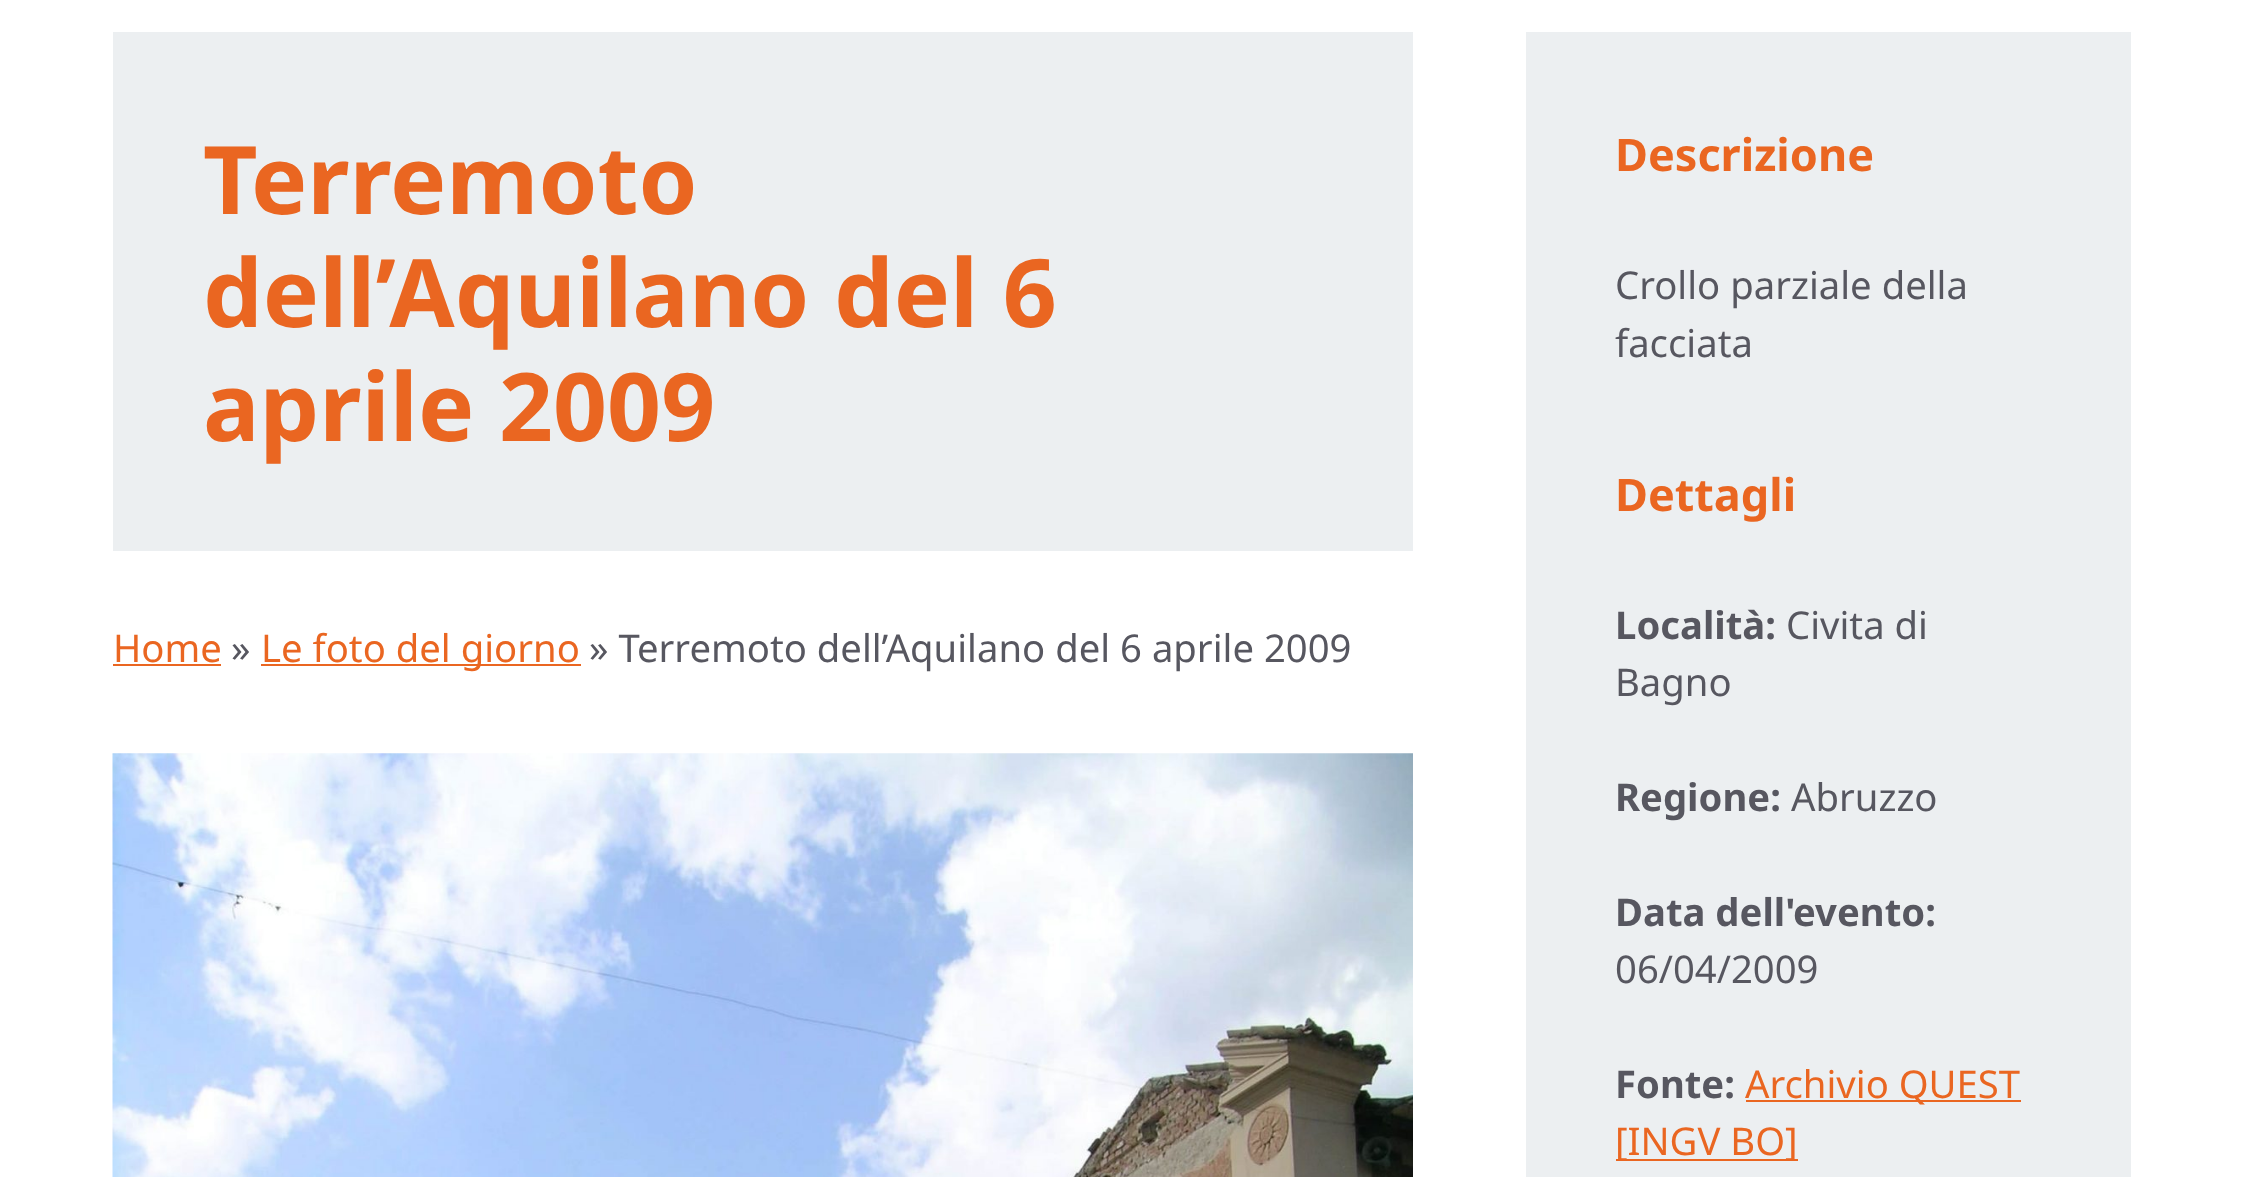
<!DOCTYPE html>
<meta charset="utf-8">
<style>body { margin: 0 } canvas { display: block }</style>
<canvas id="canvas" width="2243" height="1177"></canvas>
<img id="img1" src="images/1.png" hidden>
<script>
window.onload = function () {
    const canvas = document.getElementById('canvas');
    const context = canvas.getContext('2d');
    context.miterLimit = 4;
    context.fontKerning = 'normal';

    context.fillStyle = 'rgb(255, 255, 255)';
    context.fillRect(0, 0, 2243, 1177);
    context.fillStyle = 'rgb(236, 239, 241)';
    context.fillRect(113, 32, 1300, 519);
    context.fillStyle = 'rgb(234, 102, 33)';
    context.fillRect(113, 664, 108, 2);
    context.fillRect(261, 664, 320, 2);
    context.drawImage(document.getElementById('img1'), 112, 753, 1301, 424);
    context.fillStyle = 'rgb(236, 239, 241)';
    context.fillRect(1526, 32, 605, 1145);
    context.fillStyle = 'rgb(234, 102, 33)';
    context.fillRect(1746, 1100, 275, 2);
    context.fillRect(1616, 1159, 182, 2);
    context.font = 'bold 94.5px Noto Sans';
    context.fillText('Terremoto', 203, 214);
    context.fillText('dell’Aquilano del 6', 203, 327);
    context.fillText('aprile 2009', 203, 441);
    context.font = '38.25px Noto Sans';
    context.fillText('Home', 113, 662);
    context.fillStyle = 'rgb(87, 87, 96)';
    context.fillText('»', 231, 662);
    context.fillStyle = 'rgb(234, 102, 33)';
    context.fillText('Le foto del giorno', 261, 662);
    context.fillStyle = 'rgb(87, 87, 96)';
    context.fillText('» Terremoto dell’Aquilano del 6 aprile 2009', 589, 662);
    context.font = 'bold 45px Noto Sans';
    context.fillStyle = 'rgb(234, 102, 33)';
    context.fillText('Descrizione', 1615, 171);
    context.font = '38.25px Noto Sans';
    context.fillStyle = 'rgb(87, 87, 96)';
    context.fillText('Crollo parziale della', 1615, 299);
    context.fillText('facciata', 1615, 357);
    context.font = 'bold 45px Noto Sans';
    context.fillStyle = 'rgb(234, 102, 33)';
    context.fillText('Dettagli', 1615, 511);
    context.font = 'bold 38.25px Noto Sans';
    context.fillStyle = 'rgb(87, 87, 96)';
    context.fillText('Località:', 1615, 639);
    context.font = '38.25px Noto Sans';
    context.fillText('Civita di', 1786, 639);
    context.fillText('Bagno', 1615, 696);
    context.font = 'bold 38.25px Noto Sans';
    context.fillText('Regione:', 1615, 811);
    context.font = '38.25px Noto Sans';
    context.fillText('Abruzzo', 1791, 811);
    context.font = 'bold 38.25px Noto Sans';
    context.fillText('Data dell\'evento:', 1615, 926);
    context.font = '38.25px Noto Sans';
    context.fillText('06/04/2009', 1615, 983);
    context.font = 'bold 38.25px Noto Sans';
    context.fillText('Fonte:', 1615, 1098);
    context.font = '38.25px Noto Sans';
    context.fillStyle = 'rgb(234, 102, 33)';
    context.fillText('Archivio QUEST', 1745, 1098);
    context.fillText('[INGV BO]', 1615, 1155);
};
</script>
